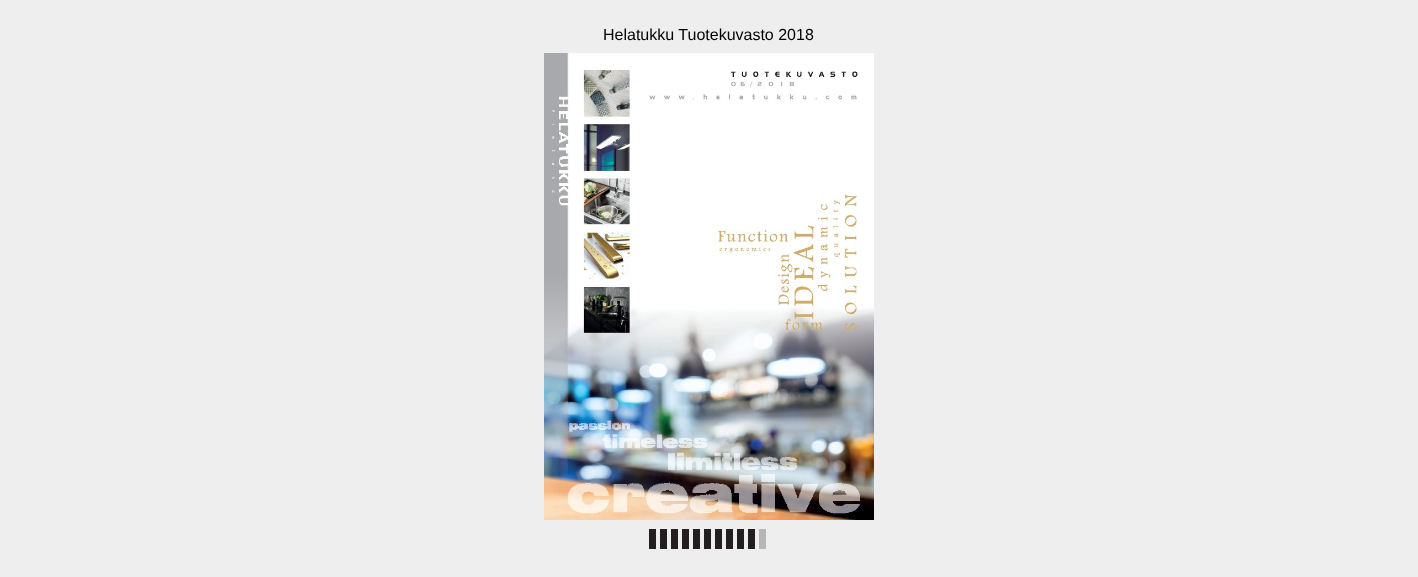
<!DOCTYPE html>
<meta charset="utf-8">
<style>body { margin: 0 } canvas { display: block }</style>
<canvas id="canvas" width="1418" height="577"></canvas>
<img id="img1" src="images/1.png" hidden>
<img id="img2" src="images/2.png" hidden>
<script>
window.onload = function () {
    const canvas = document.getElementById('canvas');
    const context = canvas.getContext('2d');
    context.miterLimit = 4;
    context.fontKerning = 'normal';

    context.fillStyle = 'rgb(238, 238, 238)';
    context.fillRect(0, 0, 1418, 577);
    context.drawImage(document.getElementById('img1'), 544, 53, 330, 467);
    context.drawImage(document.getElementById('img2'), 649, 529, 117, 20);
    context.font = '16px Liberation Sans';
    context.fillStyle = 'rgb(0, 0, 0)';
    context.fillText('Helatukku Tuotekuvasto 2018', 603, 40);
};
</script>
